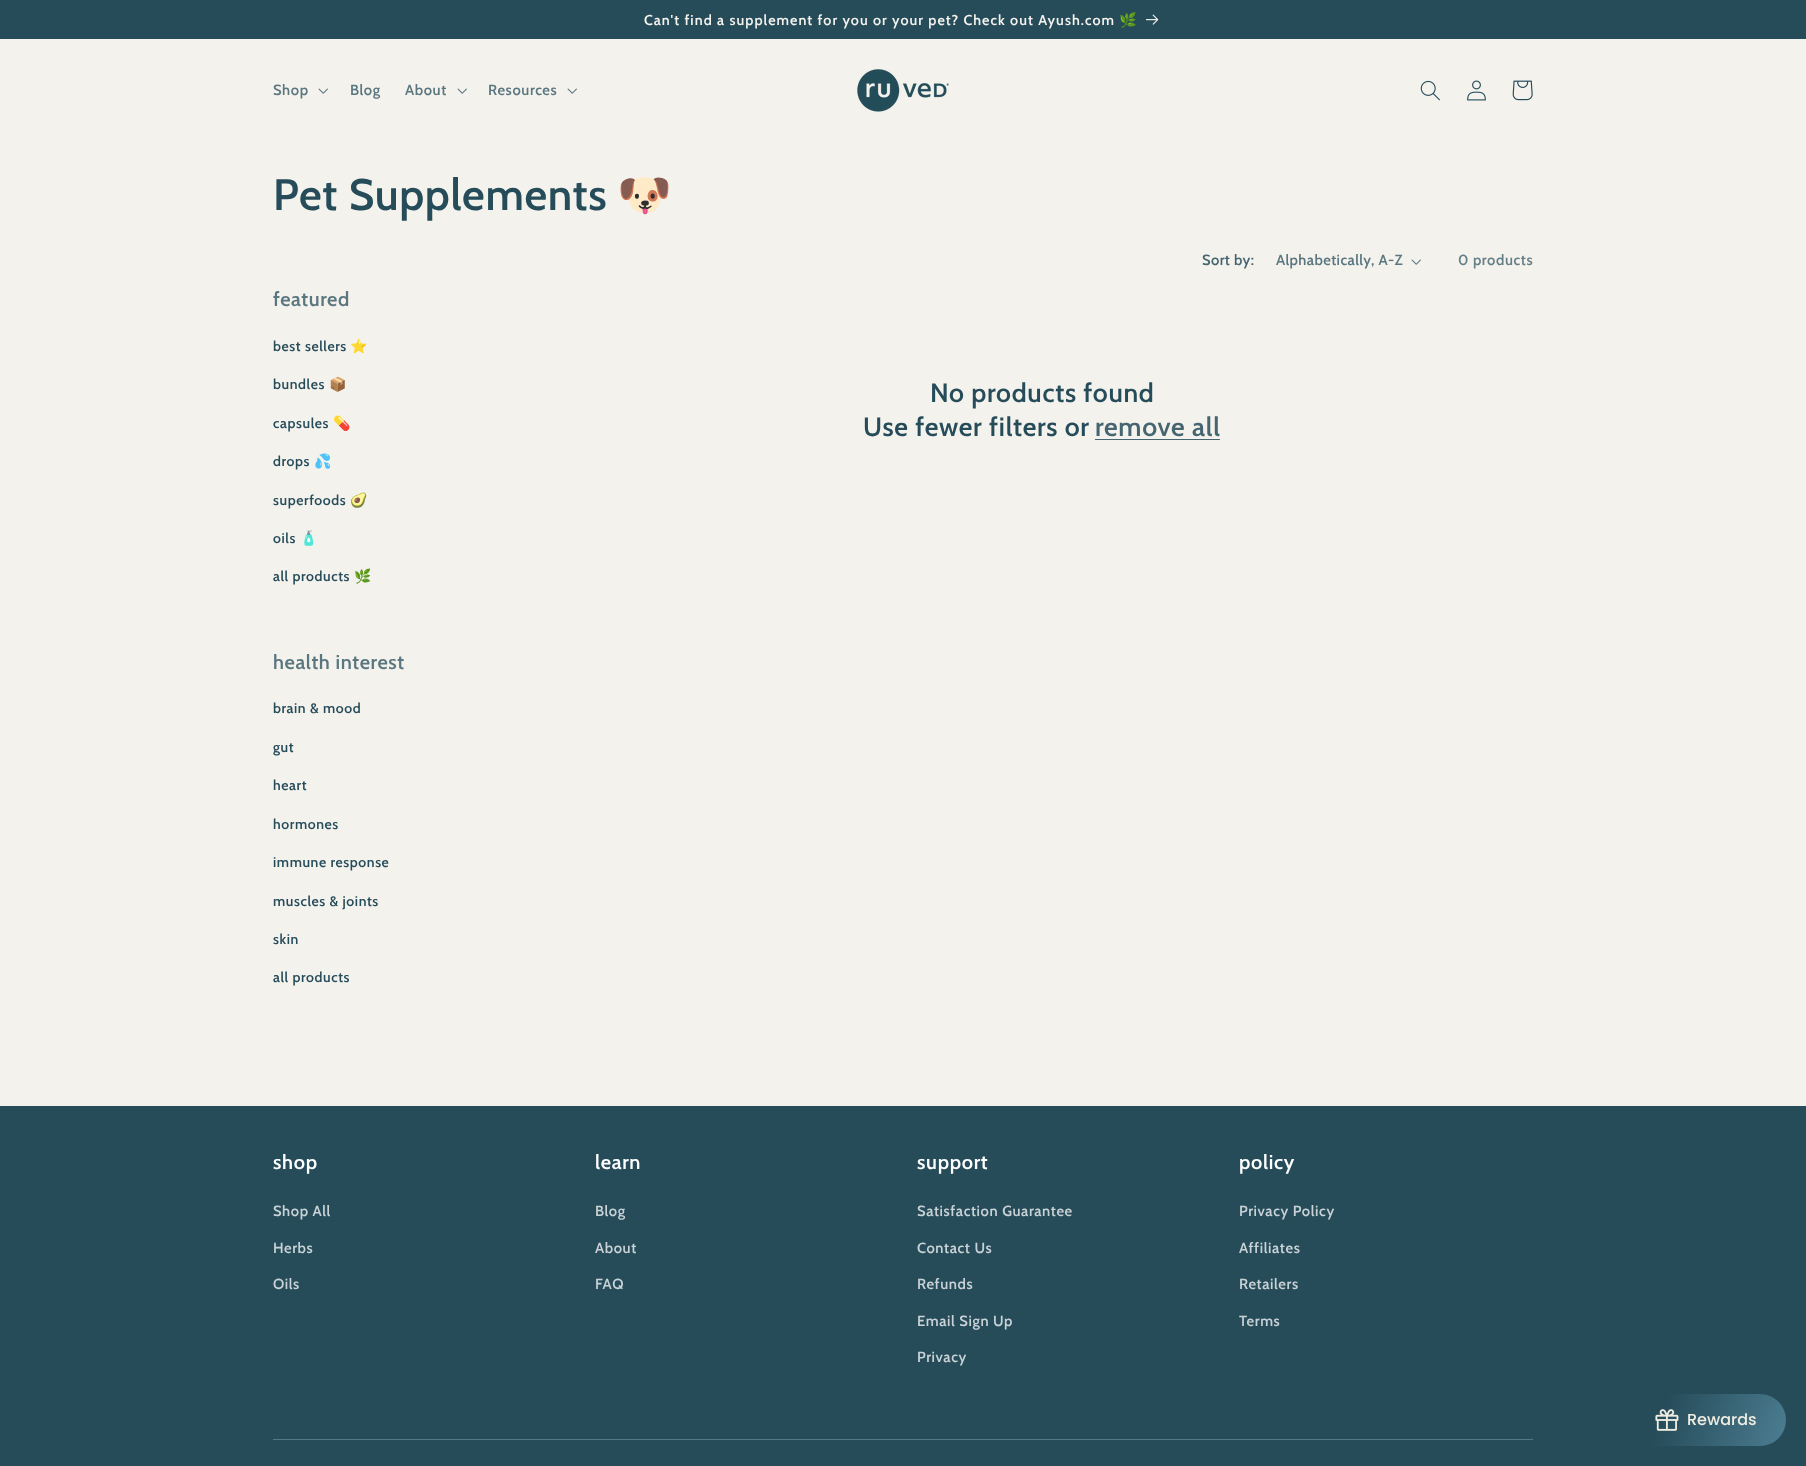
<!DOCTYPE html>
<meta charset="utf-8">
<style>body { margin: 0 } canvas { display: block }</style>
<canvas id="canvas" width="1806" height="1466"></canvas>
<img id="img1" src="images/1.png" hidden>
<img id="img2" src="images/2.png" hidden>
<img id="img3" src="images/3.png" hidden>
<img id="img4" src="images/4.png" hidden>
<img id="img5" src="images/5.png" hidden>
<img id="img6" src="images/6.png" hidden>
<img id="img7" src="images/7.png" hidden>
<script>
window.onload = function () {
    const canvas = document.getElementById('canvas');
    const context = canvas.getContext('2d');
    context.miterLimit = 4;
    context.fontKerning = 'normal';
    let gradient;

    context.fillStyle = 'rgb(244, 242, 237)';
    context.fillRect(0, 0, 1806, 1466);
    context.fillStyle = 'rgb(38, 76, 90)';
    context.fillRect(0, 0, 1806, 39);
    context.drawImage(document.getElementById('img1'), 1146, 14, 13, 11);
    context.drawImage(document.getElementById('img2'), 318, 88, 10, 6);
    context.drawImage(document.getElementById('img2'), 457, 88, 10, 6);
    context.drawImage(document.getElementById('img2'), 567, 88, 10, 6);
    context.drawImage(document.getElementById('img3'), 857, 69, 92, 43);
    context.drawImage(document.getElementById('img4'), 1420, 80, 20, 21);
    context.drawImage(document.getElementById('img5'), 1467, 80, 19, 21);
    context.drawImage(document.getElementById('img6'), 1512, 80, 21, 21);
    context.drawImage(document.getElementById('img2'), 1411, 259, 10, 6);
    context.fillStyle = 'rgb(69, 101, 112)';
    context.fillRect(1095, 439, 125, 1);
    context.fillStyle = 'rgb(38, 76, 90)';
    context.fillRect(0, 1106, 1806, 360);
    context.fillStyle = 'rgb(84, 119, 131)';
    context.fillRect(273, 1439, 1260, 1);
    gradient = context.createLinearGradient(1627, 1392, 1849, 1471);
    gradient.addColorStop(0.17, 'rgb(38, 76, 90)');
    gradient.addColorStop(1, 'rgb(96, 152, 175)');
    context.fillStyle = gradient;
    context.beginPath();
    context.roundRect(1626, 1394, 160, 52, 26);
    context.fill();
    context.drawImage(document.getElementById('img7'), 1655, 1409, 24, 22);
    context.letterSpacing = '1.05px';
    context.font = '600 14.3px Cabin';
    context.fillStyle = 'rgb(245, 243, 238)';
    context.fillText('Can\'t find a supplement for you or your pet? Check out Ayush.com', 644, 25);
    context.font = 'bold 14.3px Noto Color Emoji';
    context.fillText('🌿', 1119, 25);
    context.letterSpacing = '0.6px';
    context.font = '600 14.75px Cabin';
    context.fillStyle = 'rgb(90, 118, 127)';
    context.fillText('Shop', 273, 95);
    context.fillText('Blog', 350, 95);
    context.fillText('About', 405, 95);
    context.fillText('Resources', 488, 95);
    context.letterSpacing = '0.7px';
    context.font = '600 44px Cabin';
    context.fillStyle = 'rgb(38, 76, 90)';
    context.fillText('Pet Supplements', 273, 210);
    context.font = 'bold 44px Noto Color Emoji';
    context.fillText('🐶', 617, 210);
    context.letterSpacing = '0.4px';
    context.font = '600 14.75px Cabin';
    context.fillStyle = 'rgb(69, 101, 112)';
    context.fillText('Sort by:', 1202, 265);
    context.fillStyle = 'rgb(90, 118, 127)';
    context.fillText('Alphabetically, A-Z', 1276, 265);
    context.letterSpacing = '0.6px';
    context.fillStyle = 'rgb(100, 126, 134)';
    context.fillText('0 products', 1458, 265);
    context.font = '600 20px Cabin';
    context.fillStyle = 'rgb(90, 118, 127)';
    context.fillText('featured', 273, 306);
    context.font = '600 14px Cabin';
    context.fillStyle = 'rgb(38, 76, 90)';
    context.fillText('best sellers', 273, 351);
    context.font = 'bold 14px Noto Color Emoji';
    context.fillText('⭐️', 350, 351);
    context.font = '600 14px Cabin';
    context.fillText('bundles', 273, 389);
    context.font = 'bold 14px Noto Color Emoji';
    context.fillText('📦', 329, 389);
    context.font = '600 14px Cabin';
    context.fillText('capsules', 273, 428);
    context.font = 'bold 14px Noto Color Emoji';
    context.fillText('💊', 333, 428);
    context.font = '600 14px Cabin';
    context.fillText('drops', 273, 466);
    context.font = 'bold 14px Noto Color Emoji';
    context.fillText('💦', 314, 466);
    context.font = '600 14px Cabin';
    context.fillText('superfoods', 273, 505);
    context.font = 'bold 14px Noto Color Emoji';
    context.fillText('🥑', 350, 505);
    context.font = '600 14px Cabin';
    context.fillText('oils', 273, 543);
    context.font = 'bold 14px Noto Color Emoji';
    context.fillText('🧴', 300, 543);
    context.font = '600 14px Cabin';
    context.fillText('all products', 273, 581);
    context.font = 'bold 14px Noto Color Emoji';
    context.fillText('🌿', 354, 581);
    context.font = '600 20px Cabin';
    context.fillStyle = 'rgb(90, 118, 127)';
    context.fillText('health interest', 273, 669);
    context.font = '600 14px Cabin';
    context.fillStyle = 'rgb(38, 76, 90)';
    context.fillText('brain & mood', 273, 713);
    context.fillText('gut', 273, 752);
    context.fillText('heart', 273, 790);
    context.fillText('hormones', 273, 829);
    context.fillText('immune response', 273, 867);
    context.fillText('muscles & joints', 273, 906);
    context.fillText('skin', 273, 944);
    context.fillText('all products', 273, 982);
    context.letterSpacing = '0.7px';
    context.font = '600 26.5px Cabin';
    context.fillText('No products found', 930, 402);
    context.fillText('Use fewer filters or', 863, 436);
    context.fillStyle = 'rgb(69, 101, 112)';
    context.fillText('remove all', 1095, 436);
    context.font = '600 20px Cabin';
    context.fillStyle = 'rgb(255, 255, 255)';
    context.fillText('shop', 273, 1169);
    context.letterSpacing = '0.6px';
    context.font = '600 14.75px Cabin';
    context.fillStyle = 'rgb(201, 210, 214)';
    context.fillText('Shop All', 273, 1216);
    context.fillText('Herbs', 273, 1253);
    context.fillText('Oils', 273, 1289);
    context.letterSpacing = '0.7px';
    context.font = '600 20px Cabin';
    context.fillStyle = 'rgb(255, 255, 255)';
    context.fillText('learn', 595, 1169);
    context.letterSpacing = '0.6px';
    context.font = '600 14.75px Cabin';
    context.fillStyle = 'rgb(201, 210, 214)';
    context.fillText('Blog', 595, 1216);
    context.fillText('About', 595, 1253);
    context.fillText('FAQ', 595, 1289);
    context.letterSpacing = '0.7px';
    context.font = '600 20px Cabin';
    context.fillStyle = 'rgb(255, 255, 255)';
    context.fillText('support', 917, 1169);
    context.letterSpacing = '0.6px';
    context.font = '600 14.75px Cabin';
    context.fillStyle = 'rgb(201, 210, 214)';
    context.fillText('Satisfaction Guarantee', 917, 1216);
    context.fillText('Contact Us', 917, 1253);
    context.fillText('Refunds', 917, 1289);
    context.fillText('Email Sign Up', 917, 1326);
    context.fillText('Privacy', 917, 1362);
    context.letterSpacing = '0.7px';
    context.font = '600 20px Cabin';
    context.fillStyle = 'rgb(255, 255, 255)';
    context.fillText('policy', 1239, 1169);
    context.letterSpacing = '0.6px';
    context.font = '600 14.75px Cabin';
    context.fillStyle = 'rgb(201, 210, 214)';
    context.fillText('Privacy Policy', 1239, 1216);
    context.fillText('Affiliates', 1239, 1253);
    context.fillText('Retailers', 1239, 1289);
    context.fillText('Terms', 1239, 1326);
    context.letterSpacing = '0px';
    context.font = '500 16px Poppins';
    context.fillStyle = 'rgb(239, 236, 225)';
    context.fillText('Rewards', 1687, 1425);
};
</script>
